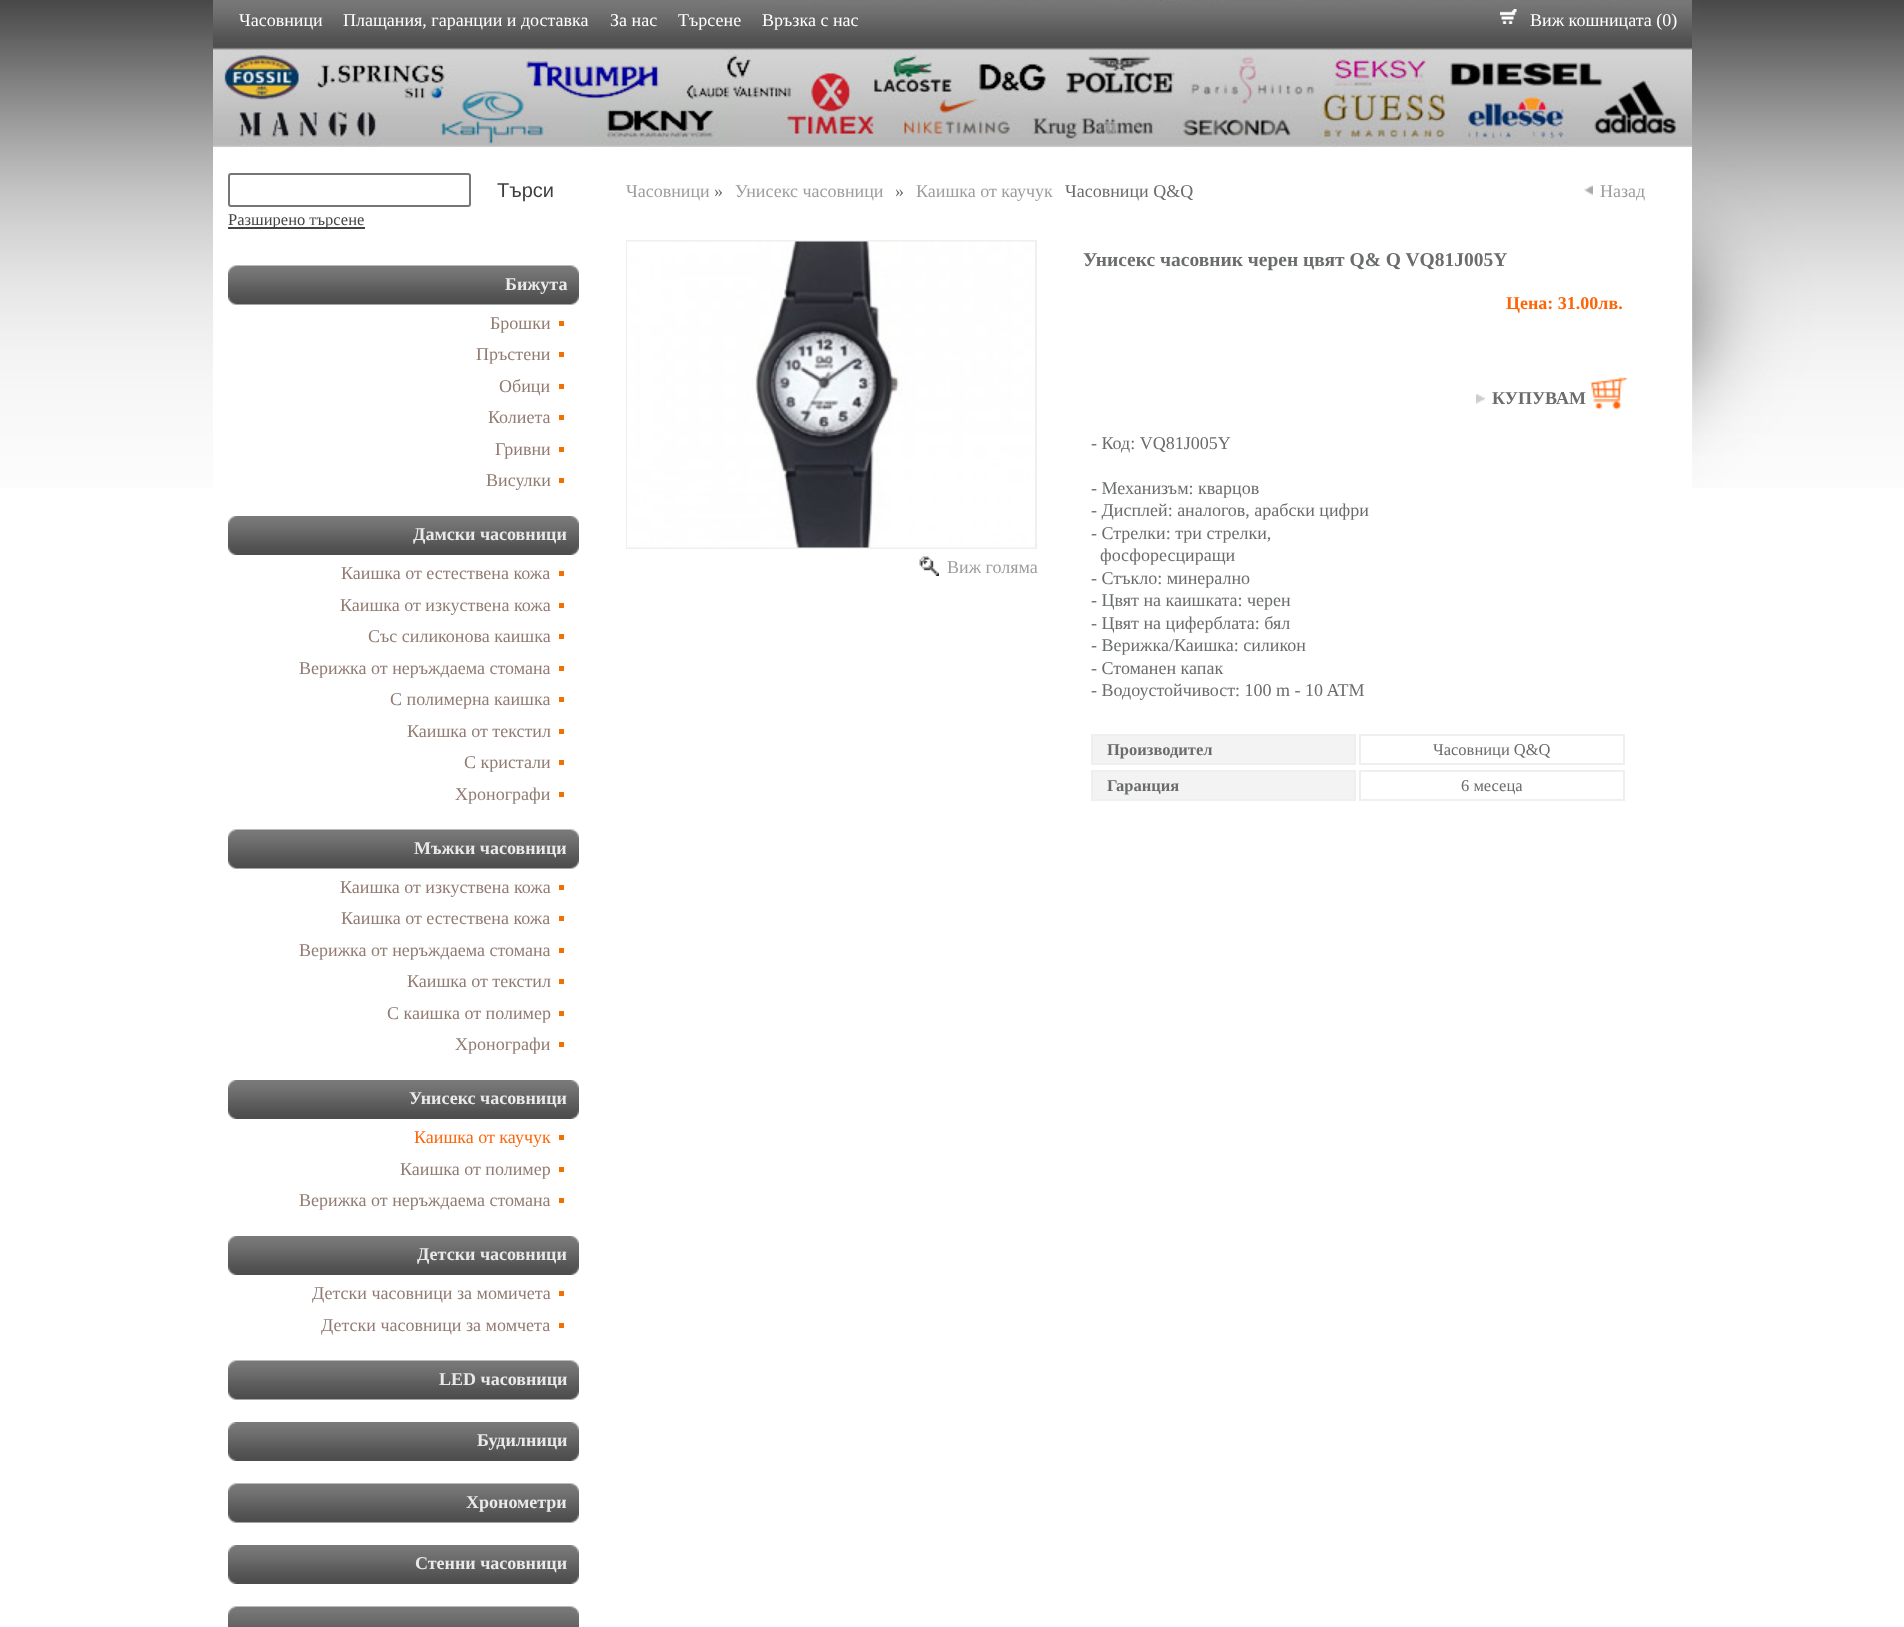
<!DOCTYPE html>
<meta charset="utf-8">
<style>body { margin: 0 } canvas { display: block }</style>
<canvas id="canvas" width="1904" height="1627"></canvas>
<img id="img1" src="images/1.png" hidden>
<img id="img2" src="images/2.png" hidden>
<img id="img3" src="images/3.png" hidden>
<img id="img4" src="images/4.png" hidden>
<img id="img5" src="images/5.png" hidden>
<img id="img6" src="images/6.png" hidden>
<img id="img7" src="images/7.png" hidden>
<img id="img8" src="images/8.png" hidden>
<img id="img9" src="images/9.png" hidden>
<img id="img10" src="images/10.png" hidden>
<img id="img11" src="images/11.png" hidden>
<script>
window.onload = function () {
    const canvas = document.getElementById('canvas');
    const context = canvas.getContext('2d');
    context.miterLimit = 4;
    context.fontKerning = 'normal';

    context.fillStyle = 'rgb(255, 255, 255)';
    context.fillRect(0, 0, 1904, 1627);
    context.drawImage(document.getElementById('img1'), 0, 0, 1904, 488);
    context.fillRect(213, 147, 1479, 341);
    context.drawImage(document.getElementById('img2'), 213, 0, 1479, 147);
    context.drawImage(document.getElementById('img3'), 1500, 9, 17, 15);
    context.beginPath();
    context.roundRect(229, 174, 241, 32, 2);
    context.strokeStyle = 'rgb(118, 118, 118)';
    context.lineWidth = 2;
    context.stroke();
    context.fillStyle = 'rgb(68, 68, 68)';
    context.fillRect(228, 227, 137, 2);
    context.drawImage(document.getElementById('img4'), 228, 265, 351, 40);
    context.fillStyle = 'rgb(240, 113, 0)';
    context.fillRect(559, 321, 5, 5);
    context.fillRect(559, 352, 5, 5);
    context.fillRect(559, 384, 5, 5);
    context.fillRect(559, 415, 5, 5);
    context.fillRect(559, 447, 5, 5);
    context.fillRect(559, 478, 5, 5);
    context.drawImage(document.getElementById('img5'), 228, 516, 351, 39);
    context.fillRect(559, 571, 5, 5);
    context.fillRect(559, 603, 5, 5);
    context.fillRect(559, 634, 5, 5);
    context.fillRect(559, 666, 5, 5);
    context.fillRect(559, 697, 5, 5);
    context.fillRect(559, 729, 5, 5);
    context.fillRect(559, 760, 5, 5);
    context.fillRect(559, 792, 5, 5);
    context.drawImage(document.getElementById('img4'), 228, 829, 351, 40);
    context.fillRect(559, 885, 5, 5);
    context.fillRect(559, 916, 5, 5);
    context.fillRect(559, 948, 5, 5);
    context.fillRect(559, 979, 5, 5);
    context.fillRect(559, 1011, 5, 5);
    context.fillRect(559, 1042, 5, 5);
    context.drawImage(document.getElementById('img5'), 228, 1080, 351, 39);
    context.fillRect(559, 1135, 5, 5);
    context.fillRect(559, 1167, 5, 5);
    context.fillRect(559, 1198, 5, 5);
    context.drawImage(document.getElementById('img5'), 228, 1236, 351, 39);
    context.fillRect(559, 1291, 5, 5);
    context.fillRect(559, 1323, 5, 5);
    context.drawImage(document.getElementById('img4'), 228, 1360, 351, 40);
    context.drawImage(document.getElementById('img5'), 228, 1422, 351, 39);
    context.drawImage(document.getElementById('img4'), 228, 1483, 351, 40);
    context.drawImage(document.getElementById('img5'), 228, 1545, 351, 39);
    context.drawImage(document.getElementById('img6'), 228, 1606, 351, 21);
    context.drawImage(document.getElementById('img7'), 1584, 184, 9, 11);
    context.strokeStyle = 'rgb(239, 239, 239)';
    context.strokeRect(627, 241, 409, 307);
    context.drawImage(document.getElementById('img8'), 627, 241, 408, 307);
    context.drawImage(document.getElementById('img9'), 919, 556, 20, 20);
    context.drawImage(document.getElementById('img10'), 1476, 394, 9, 10);
    context.drawImage(document.getElementById('img11'), 1591, 377, 37, 33);
    context.fillStyle = 'rgb(243, 243, 243)';
    context.beginPath();
    context.rect(1092, 735, 263, 29);
    context.fill();
    context.stroke();
    context.strokeRect(1360, 735, 264, 29);
    context.beginPath();
    context.rect(1092, 771, 263, 29);
    context.fill();
    context.stroke();
    context.strokeRect(1360, 771, 264, 29);
    context.font = '18px Liberation Serif';
    context.fillStyle = 'rgb(255, 255, 255)';
    context.fillText('Часовници', 239, 26);
    context.fillText('Плащания, гаранции и доставка', 343, 26);
    context.fillText('За нас', 610, 26);
    context.fillText('Търсене', 678, 26);
    context.fillText('Връзка с нас', 762, 26);
    context.fillText('Виж кошницата (0)', 1530, 26);
    context.font = '20px Liberation Sans';
    context.fillStyle = 'rgb(62, 62, 62)';
    context.fillText('Търси', 497, 197);
    context.font = '16.5px Liberation Serif';
    context.fillStyle = 'rgb(68, 68, 68)';
    context.fillText('Разширено търсене', 228, 225);
    context.font = 'bold 18px Liberation Serif';
    context.fillStyle = 'rgb(233, 233, 233)';
    context.fillText('Бижута', 505, 290);
    context.font = '18px Liberation Serif';
    context.fillStyle = 'rgb(145, 123, 114)';
    context.fillText('Брошки', 490, 329);
    context.fillText('Пръстени', 476, 360);
    context.fillText('Обици', 499, 392);
    context.fillText('Колиета', 488, 423);
    context.fillText('Гривни', 495, 455);
    context.fillText('Висулки', 486, 486);
    context.font = 'bold 18px Liberation Serif';
    context.fillStyle = 'rgb(233, 233, 233)';
    context.fillText('Дамски часовници', 413, 540);
    context.font = '18px Liberation Serif';
    context.fillStyle = 'rgb(145, 123, 114)';
    context.fillText('Каишка от естествена кожа', 341, 579);
    context.fillText('Каишка от изкуствена кожа', 340, 611);
    context.fillText('Със силиконова каишка', 368, 642);
    context.fillText('Верижка от неръждаема стомана', 299, 674);
    context.fillText('С полимерна каишка', 390, 705);
    context.fillText('Каишка от текстил', 407, 737);
    context.fillText('С кристали', 464, 768);
    context.fillText('Хронографи', 455, 800);
    context.font = 'bold 18px Liberation Serif';
    context.fillStyle = 'rgb(233, 233, 233)';
    context.fillText('Мъжки часовници', 414, 854);
    context.font = '18px Liberation Serif';
    context.fillStyle = 'rgb(145, 123, 114)';
    context.fillText('Каишка от изкуствена кожа', 340, 893);
    context.fillText('Каишка от естествена кожа', 341, 924);
    context.fillText('Верижка от неръждаема стомана', 299, 956);
    context.fillText('Каишка от текстил', 407, 987);
    context.fillText('С каишка от полимер', 387, 1019);
    context.fillText('Хронографи', 455, 1050);
    context.font = 'bold 18px Liberation Serif';
    context.fillStyle = 'rgb(233, 233, 233)';
    context.fillText('Унисекс часовници', 409, 1104);
    context.font = '18px Liberation Serif';
    context.fillStyle = 'rgb(253, 101, 9)';
    context.fillText('Каишка от каучук', 414, 1143);
    context.fillStyle = 'rgb(145, 123, 114)';
    context.fillText('Каишка от полимер', 400, 1175);
    context.fillText('Верижка от неръждаема стомана', 299, 1206);
    context.font = 'bold 18px Liberation Serif';
    context.fillStyle = 'rgb(233, 233, 233)';
    context.fillText('Детски часовници', 417, 1260);
    context.font = '18px Liberation Serif';
    context.fillStyle = 'rgb(145, 123, 114)';
    context.fillText('Детски часовници за момичета', 312, 1299);
    context.fillText('Детски часовници за момчета', 321, 1331);
    context.font = 'bold 18px Liberation Serif';
    context.fillStyle = 'rgb(233, 233, 233)';
    context.fillText('LED часовници', 439, 1385);
    context.fillText('Будилници', 477, 1446);
    context.fillText('Хронометри', 466, 1508);
    context.fillText('Стенни часовници', 415, 1569);
    context.font = '18px Liberation Serif';
    context.fillStyle = 'rgb(157, 157, 157)';
    context.fillText('Часовници', 626, 197);
    context.fillStyle = 'rgb(106, 108, 109)';
    context.fillText('»', 714, 197);
    context.fillStyle = 'rgb(157, 157, 157)';
    context.fillText('Унисекс часовници', 735, 197);
    context.fillStyle = 'rgb(106, 108, 109)';
    context.fillText('»', 895, 197);
    context.fillStyle = 'rgb(157, 157, 157)';
    context.fillText('Каишка от каучук', 916, 197);
    context.fillStyle = 'rgb(106, 108, 109)';
    context.fillText('Часовници Q&Q', 1065, 197);
    context.fillStyle = 'rgb(157, 157, 157)';
    context.fillText('Назад', 1600, 197);
    context.fillText('Виж голяма', 947, 573);
    context.font = 'bold 19.5px Liberation Serif';
    context.fillStyle = 'rgb(106, 108, 109)';
    context.fillText('Унисекс часовник черен цвят Q& Q VQ81J005Y', 1083, 266);
    context.font = 'bold 18px Liberation Serif';
    context.fillStyle = 'rgb(253, 101, 9)';
    context.fillText('Цена: 31.00лв.', 1506, 309);
    context.fillStyle = 'rgb(106, 108, 109)';
    context.fillText('КУПУВАМ', 1492, 404);
    context.font = '18px Liberation Serif';
    context.fillText('- Код: VQ81J005Y', 1091, 449);
    context.fillText('- Механизъм: кварцов', 1091, 494);
    context.fillText('- Дисплей: аналогов, арабски цифри', 1091, 516);
    context.fillText('- Стрелки: три стрелки,', 1091, 539);
    context.fillText('фосфоресциращи', 1100, 561);
    context.fillText('- Стъкло: минерално', 1091, 584);
    context.fillText('- Цвят на каишката: черен', 1091, 606);
    context.fillText('- Цвят на циферблата: бял', 1091, 629);
    context.fillText('- Верижка/Каишка: силикон', 1091, 651);
    context.fillText('- Стоманен капак', 1091, 674);
    context.fillText('- Водоустойчивост: 100 m - 10 ATM', 1091, 696);
    context.font = 'bold 16.5px Liberation Serif';
    context.fillText('Производител', 1107, 755);
    context.font = '16.5px Liberation Serif';
    context.fillText('Часовници Q&Q', 1433, 755);
    context.font = 'bold 16.5px Liberation Serif';
    context.fillText('Гаранция', 1107, 791);
    context.font = '16.5px Liberation Serif';
    context.fillText('6 месеца', 1461, 791);
};
</script>
